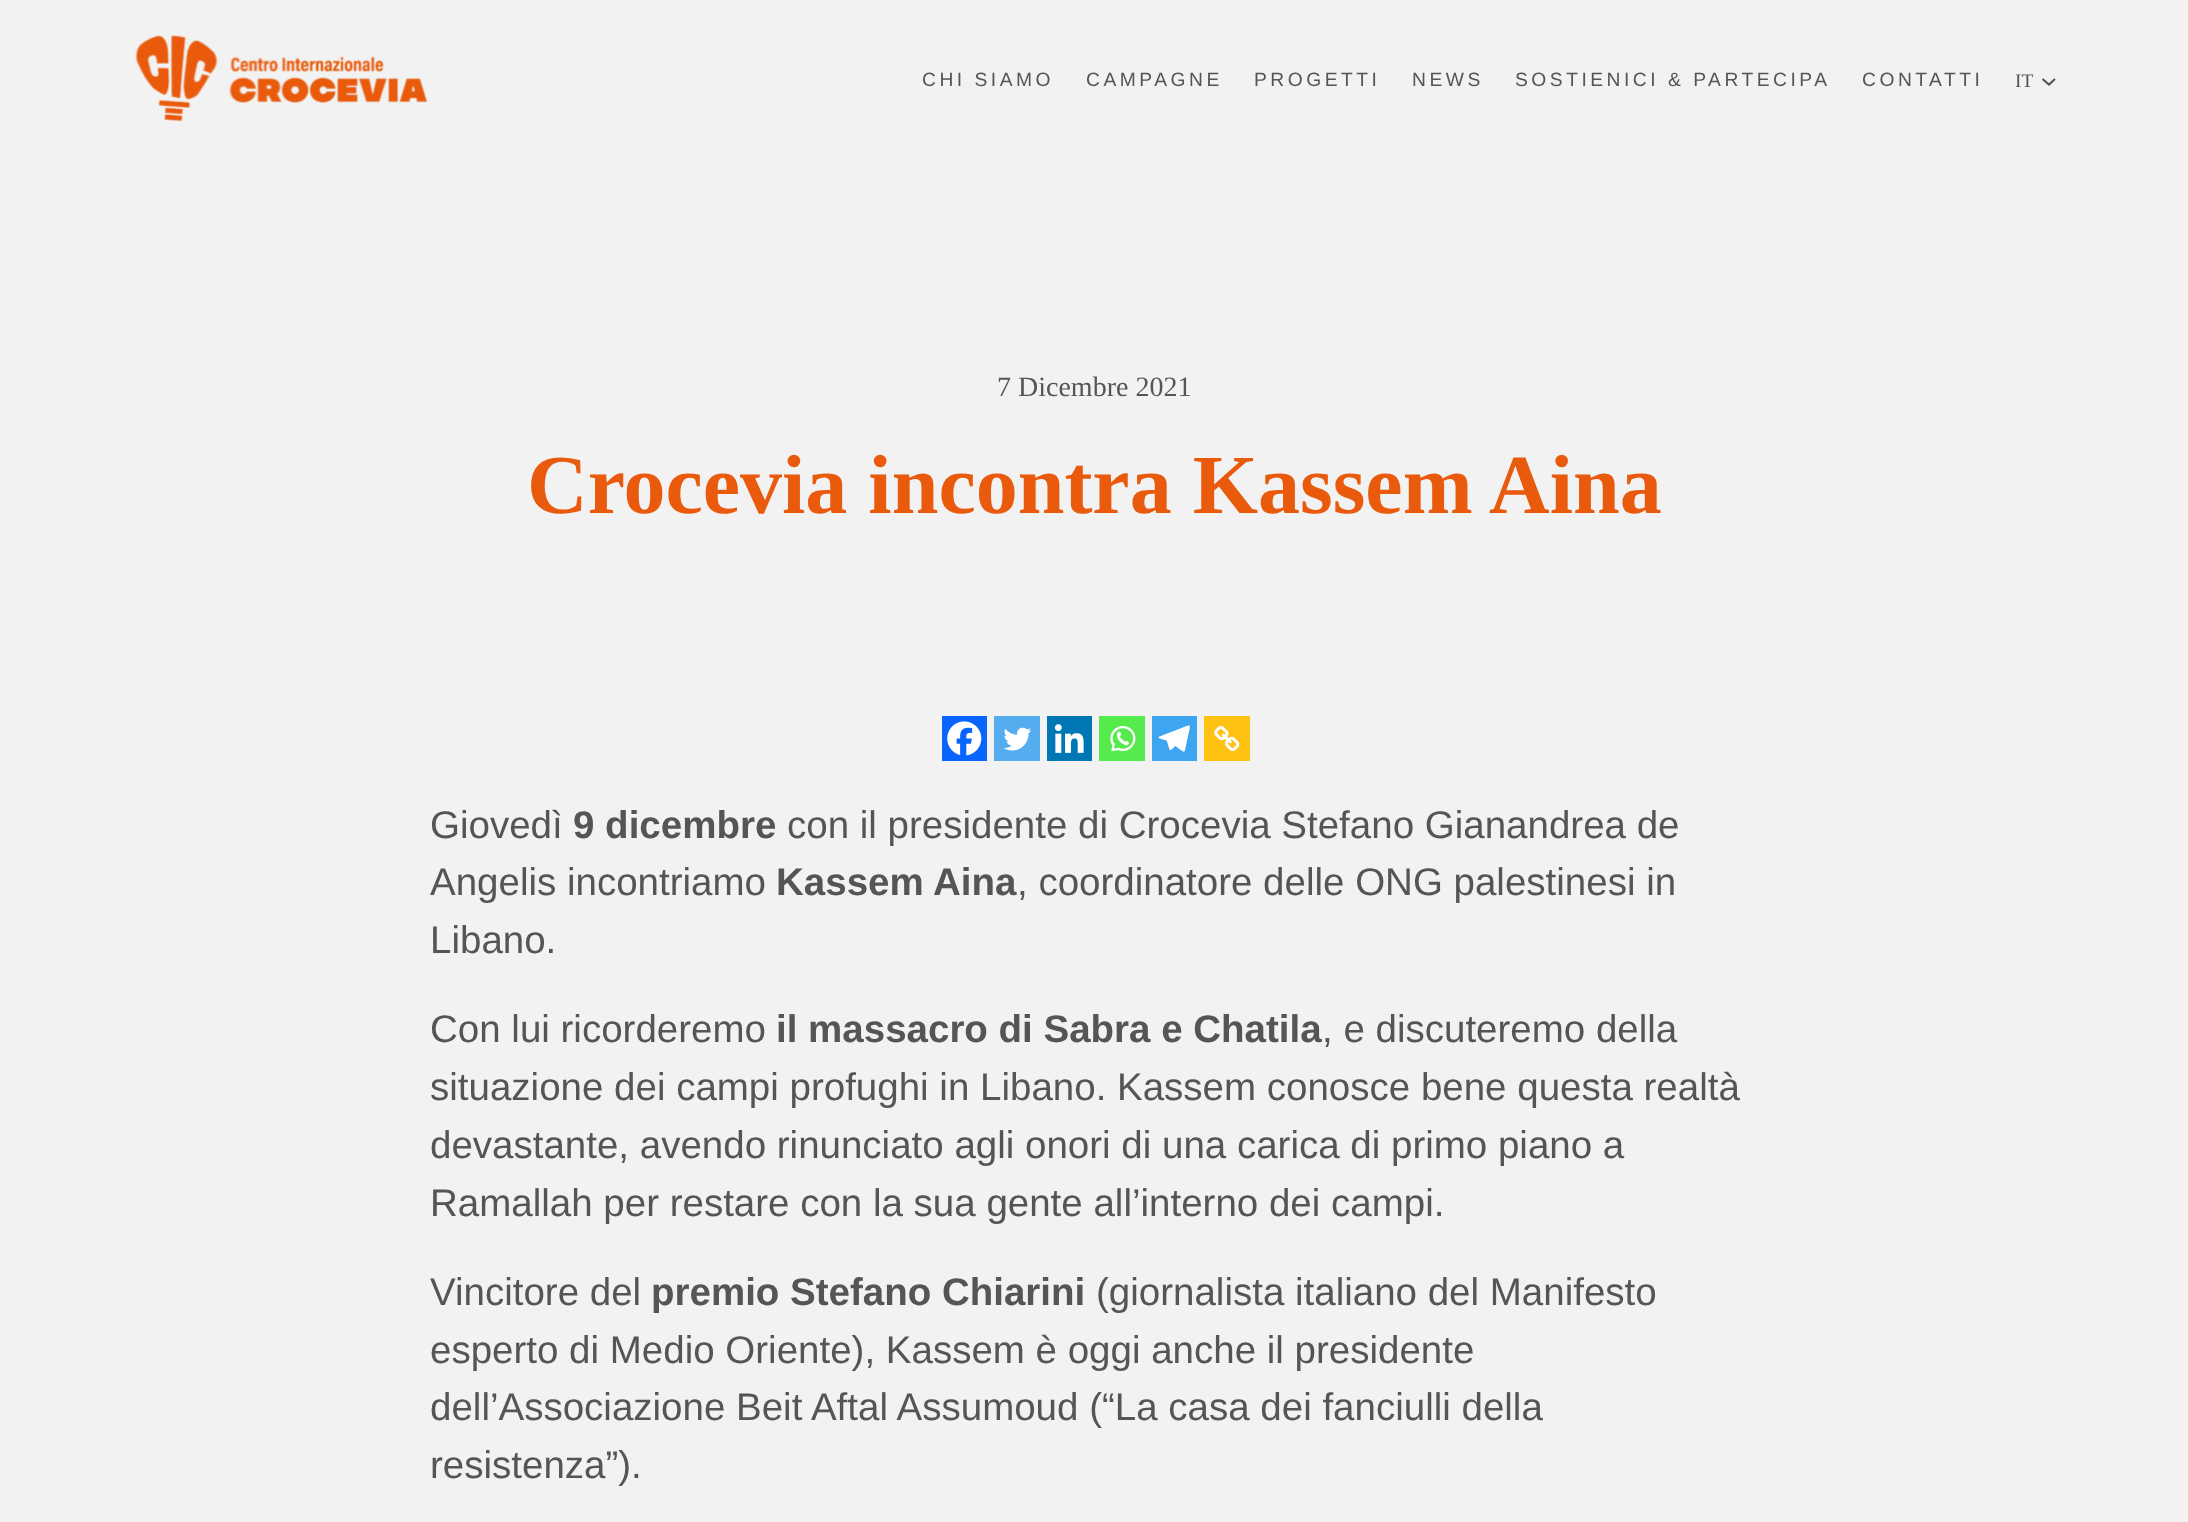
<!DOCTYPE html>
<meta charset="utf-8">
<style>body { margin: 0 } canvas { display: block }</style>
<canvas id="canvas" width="2188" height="1522"></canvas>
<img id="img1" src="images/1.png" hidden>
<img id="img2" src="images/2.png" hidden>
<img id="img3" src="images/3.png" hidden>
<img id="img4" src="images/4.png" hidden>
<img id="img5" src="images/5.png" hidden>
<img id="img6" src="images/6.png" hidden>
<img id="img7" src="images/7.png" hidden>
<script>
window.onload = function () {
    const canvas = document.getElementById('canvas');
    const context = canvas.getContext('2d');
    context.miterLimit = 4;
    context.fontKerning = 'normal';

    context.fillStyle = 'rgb(242, 242, 242)';
    context.fillRect(0, 0, 2188, 1522);
    context.drawImage(document.getElementById('img1'), 135, 35, 293, 87);
    context.beginPath();
    context.moveTo(2042.5, 79);
    context.lineTo(2049, 84.5);
    context.lineTo(2055, 79);
    context.strokeStyle = 'rgb(85, 85, 85)';
    context.lineWidth = 2.1;
    context.stroke();
    context.fillStyle = 'rgb(7, 101, 254)';
    context.fillRect(942, 716, 45, 45);
    context.drawImage(document.getElementById('img2'), 947, 721, 35, 35);
    context.fillStyle = 'rgb(85, 172, 238)';
    context.fillRect(994, 716, 46, 45);
    context.drawImage(document.getElementById('img3'), 1003, 727, 29, 24);
    context.fillStyle = 'rgb(0, 119, 181)';
    context.fillRect(1047, 716, 45, 45);
    context.drawImage(document.getElementById('img4'), 1054, 724, 30, 29);
    context.fillStyle = 'rgb(85, 235, 76)';
    context.fillRect(1099, 716, 46, 45);
    context.drawImage(document.getElementById('img5'), 1110, 726, 26, 26);
    context.fillStyle = 'rgb(61, 165, 241)';
    context.fillRect(1152, 716, 45, 45);
    context.drawImage(document.getElementById('img6'), 1158, 725, 32, 27);
    context.fillStyle = 'rgb(255, 193, 18)';
    context.fillRect(1204, 716, 46, 45);
    context.drawImage(document.getElementById('img7'), 1214, 726, 26, 25);
    context.letterSpacing = '3.5px';
    context.font = '19.25px Liberation Sans';
    context.fillStyle = 'rgb(85, 85, 85)';
    context.fillText('CHI SIAMO', 922, 86);
    context.fillText('CAMPAGNE', 1086, 86);
    context.fillText('PROGETTI', 1254, 86);
    context.fillText('NEWS', 1412, 86);
    context.fillText('SOSTIENICI & PARTECIPA', 1515, 86);
    context.fillText('CONTATTI', 1862, 86);
    context.letterSpacing = '0px';
    context.font = '19.25px Liberation Serif';
    context.fillText('IT', 2015, 87);
    context.font = '28px Liberation Serif';
    context.fillText('7 Dicembre 2021', 997, 396);
    context.font = 'bold 84px Liberation Serif';
    context.fillStyle = 'rgb(233, 90, 12)';
    context.fillText('Crocevia incontra Kassem Aina', 527, 513);
    context.font = '38.5px Liberation Sans';
    context.fillStyle = 'rgb(85, 85, 85)';
    context.fillText('Giovedì', 430, 838);
    context.font = 'bold 38.5px Liberation Sans';
    context.fillText('9 dicembre', 573, 838);
    context.font = '38.5px Liberation Sans';
    context.fillText('con il presidente di Crocevia Stefano Gianandrea de', 787, 838);
    context.fillText('Angelis incontriamo', 430, 895);
    context.font = 'bold 38.5px Liberation Sans';
    context.fillText('Kassem Aina', 776, 895);
    context.font = '38.5px Liberation Sans';
    context.fillText(', coordinatore delle ONG palestinesi in', 1017, 895);
    context.fillText('Libano.', 430, 953);
    context.fillText('Con lui ricorderemo', 430, 1042);
    context.font = 'bold 38.5px Liberation Sans';
    context.fillText('il massacro di Sabra e Chatila', 776, 1042);
    context.font = '38.5px Liberation Sans';
    context.fillText(', e discuteremo della', 1322, 1042);
    context.fillText('situazione dei campi profughi in Libano. Kassem conosce bene questa realtà', 430, 1100);
    context.fillText('devastante, avendo rinunciato agli onori di una carica di primo piano a', 430, 1158);
    context.fillText('Ramallah per restare con la sua gente all’interno dei campi.', 430, 1216);
    context.fillText('Vincitore del', 430, 1305);
    context.font = 'bold 38.5px Liberation Sans';
    context.fillText('premio Stefano Chiarini', 651, 1305);
    context.font = '38.5px Liberation Sans';
    context.fillText('(giornalista italiano del Manifesto', 1096, 1305);
    context.fillText('esperto di Medio Oriente), Kassem è oggi anche il presidente', 430, 1363);
    context.fillText('dell’Associazione Beit Aftal Assumoud (“La casa dei fanciulli della', 430, 1420);
    context.fillText('resistenza”).', 430, 1478);
};
</script>
